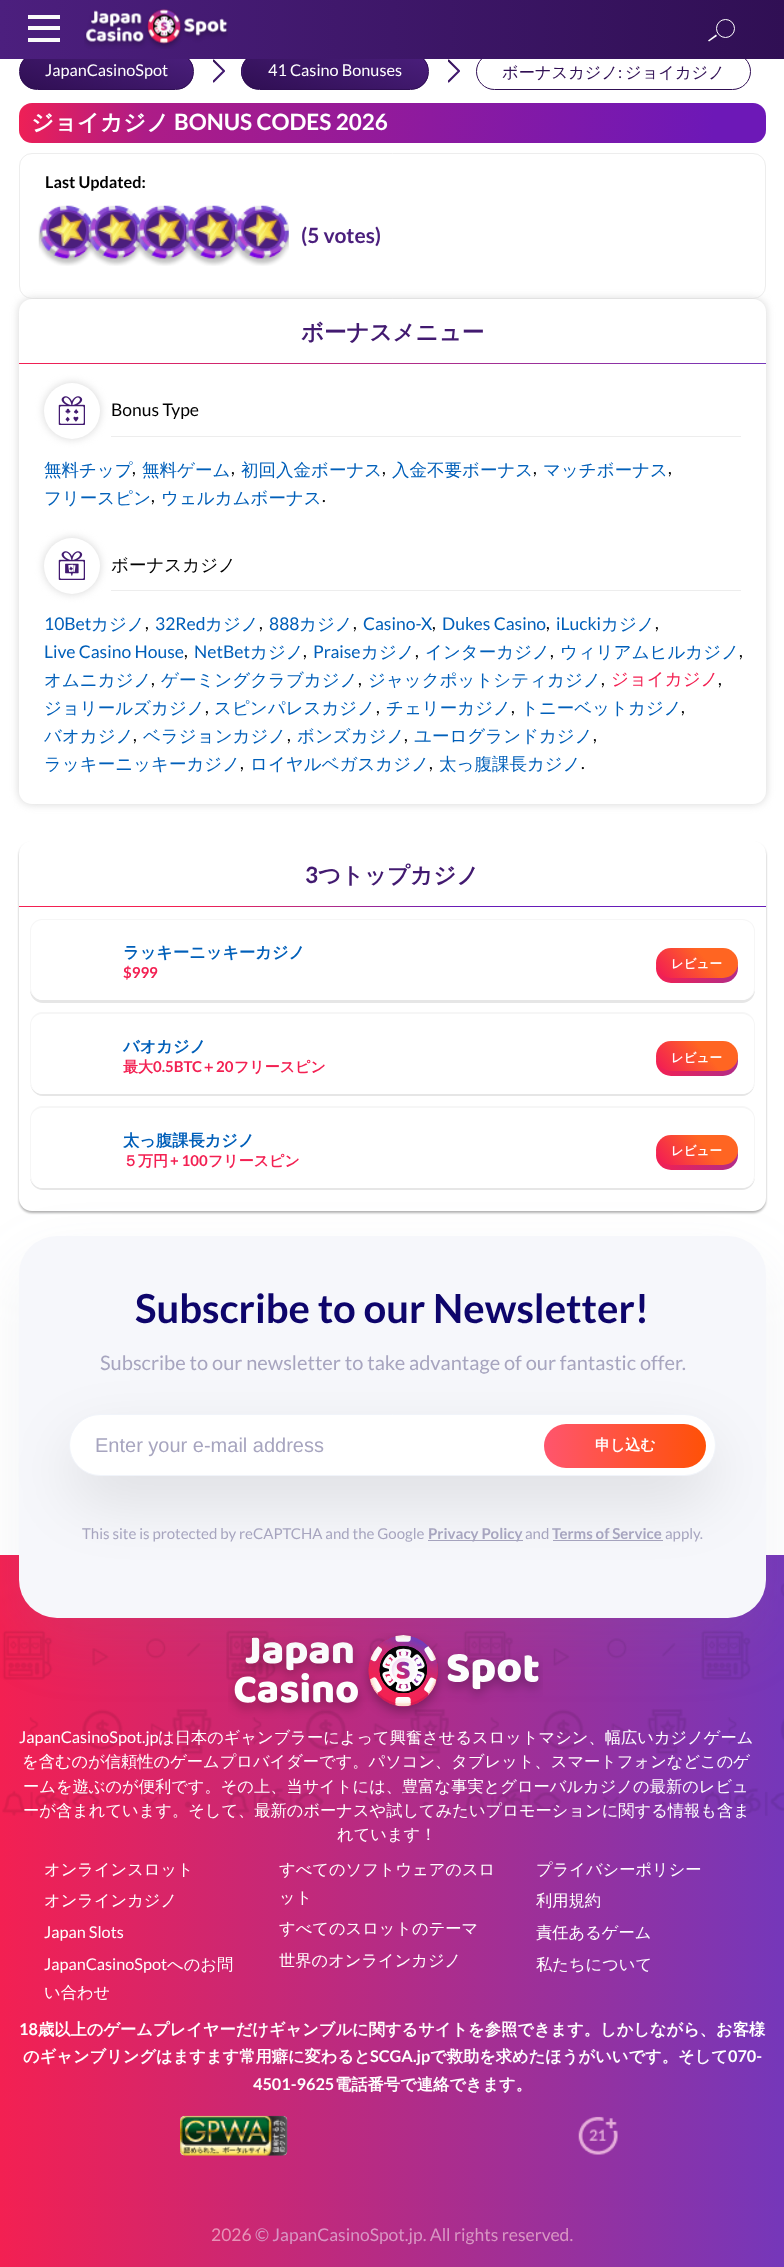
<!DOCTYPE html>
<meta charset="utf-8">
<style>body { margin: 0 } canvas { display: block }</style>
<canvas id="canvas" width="784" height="2267"></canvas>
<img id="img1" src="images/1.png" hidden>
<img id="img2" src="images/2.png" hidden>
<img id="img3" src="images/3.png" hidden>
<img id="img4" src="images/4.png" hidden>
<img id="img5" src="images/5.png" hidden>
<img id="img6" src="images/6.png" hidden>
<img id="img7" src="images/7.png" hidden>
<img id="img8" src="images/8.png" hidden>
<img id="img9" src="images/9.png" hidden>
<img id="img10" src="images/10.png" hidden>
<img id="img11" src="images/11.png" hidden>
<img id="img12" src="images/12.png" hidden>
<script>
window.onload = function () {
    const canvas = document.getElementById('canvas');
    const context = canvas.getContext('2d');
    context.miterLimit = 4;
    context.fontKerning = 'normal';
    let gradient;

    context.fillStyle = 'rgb(255, 255, 255)';
    context.fillRect(0, 0, 784, 2267);
    context.save();
    context.beginPath();
    context.roundRect(19, 53, 175, 37, 18.5);
    context.clip();
    gradient = context.createLinearGradient(95, 111, 118, 32);
    gradient.addColorStop(0.02, 'rgb(48, 15, 84)');
    gradient.addColorStop(1, 'rgb(75, 31, 125)');
    context.fillStyle = gradient;
    context.fillRect(20, 59, 173, 30);
    context.restore();
    context.beginPath();
    context.roundRect(19.5, 53.5, 174, 36, 18);
    context.strokeStyle = 'rgb(48, 15, 84)';
    context.stroke();
    context.save();
    context.beginPath();
    context.roundRect(241, 53, 188, 37, 18.5);
    context.clip();
    gradient = context.createLinearGradient(138, 113, 162, 30);
    gradient.addColorStop(0.02, 'rgb(48, 15, 84)');
    gradient.addColorStop(1, 'rgb(75, 31, 125)');
    context.fillStyle = gradient;
    context.fillRect(241, 63, 2, 17);
    gradient = context.createLinearGradient(323, 113, 347, 30);
    gradient.addColorStop(0.02, 'rgb(48, 15, 84)');
    gradient.addColorStop(1, 'rgb(75, 31, 125)');
    context.fillStyle = gradient;
    context.fillRect(243, 59, 185, 30);
    context.restore();
    context.beginPath();
    context.roundRect(241.5, 53.5, 187, 36, 18);
    context.stroke();
    context.beginPath();
    context.roundRect(476.5, 53.5, 274, 36, 18);
    context.stroke();
    gradient = context.createLinearGradient(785, 29, 0, 29);
    gradient.addColorStop(0, 'rgb(48, 15, 84)');
    gradient.addColorStop(1, 'rgb(76, 31, 126)');
    context.fillStyle = gradient;
    context.fillRect(0, 0, 784, 59);
    context.fillStyle = 'rgb(250, 250, 250)';
    context.fillRect(28, 15, 32, 4);
    context.fillRect(28, 26, 32, 4);
    context.fillRect(28, 38, 32, 4);
    context.drawImage(document.getElementById('img1'), 84, 9, 144, 40);
    context.fillStyle = 'rgb(255, 255, 255)';
    context.beginPath();
    context.moveTo(708, 40.5);
    context.lineTo(716, 34.5);
    context.lineTo(717, 36);
    context.lineTo(709, 41.5);
    context.closePath();
    context.fill();
    context.beginPath();
    context.arc(725.5, 28.5, 9, 0, 2 * Math.PI);
    context.strokeStyle = 'rgb(255, 255, 255)';
    context.stroke();
    context.save();
    context.beginPath();
    context.rect(213, 59, 12, 25);
    context.clip();
    context.beginPath();
    context.moveTo(213.5, 60.5);
    context.lineTo(224, 71);
    context.lineTo(213.5, 81.5);
    gradient = context.createLinearGradient(209, 72, 225, 79);
    gradient.addColorStop(0, 'rgb(48, 15, 84)');
    gradient.addColorStop(1, 'rgb(75, 31, 125)');
    context.strokeStyle = gradient;
    context.lineWidth = 2.1;
    context.lineCap = 'round';
    context.lineJoin = 'round';
    context.stroke();
    context.restore();
    context.save();
    context.beginPath();
    context.rect(448, 59, 12, 25);
    context.clip();
    context.beginPath();
    context.moveTo(448.5, 60.5);
    context.lineTo(459, 71);
    context.lineTo(448.5, 81.5);
    gradient = context.createLinearGradient(444, 72, 460, 79);
    gradient.addColorStop(0, 'rgb(48, 15, 84)');
    gradient.addColorStop(1, 'rgb(75, 31, 125)');
    context.strokeStyle = gradient;
    context.lineWidth = 2.1;
    context.lineCap = 'round';
    context.lineJoin = 'round';
    context.stroke();
    context.restore();
    gradient = context.createLinearGradient(10, 98, 766, 146);
    gradient.addColorStop(0, 'rgb(243, 32, 82)');
    gradient.addColorStop(0.18, 'rgb(173, 28, 135)');
    gradient.addColorStop(0.93, 'rgb(109, 24, 183)');
    context.fillStyle = gradient;
    context.beginPath();
    context.roundRect(19, 103, 747, 40, 13);
    context.fill();
    context.beginPath();
    context.roundRect(19.5, 153.5, 746, 145, 12.5);
    context.strokeStyle = 'rgb(237, 237, 237)';
    context.stroke();
    context.drawImage(document.getElementById('img2'), 38, 205, 56, 61);
    context.drawImage(document.getElementById('img3'), 87, 205, 56, 61);
    context.drawImage(document.getElementById('img4'), 136, 205, 56, 61);
    context.drawImage(document.getElementById('img5'), 185, 205, 55, 61);
    context.drawImage(document.getElementById('img6'), 233, 205, 56, 61);
    context.fillStyle = 'rgb(213, 213, 213)';
    context.filter = 'blur(4px)';
    context.beginPath();
    context.roundRect(19, 299, 747, 505, 13);
    context.fill();
    context.filter = 'none';
    context.fillStyle = 'rgb(255, 255, 255)';
    context.beginPath();
    context.roundRect(19, 299, 747, 505, 13);
    context.fill();
    gradient = context.createLinearGradient(19, 363, 766, 363);
    gradient.addColorStop(0, 'rgb(243, 32, 82)');
    gradient.addColorStop(1, 'rgb(117, 55, 186)');
    context.fillStyle = gradient;
    context.fillRect(19, 363, 747, 1);
    context.fillStyle = 'rgb(213, 213, 213)';
    context.filter = 'blur(4px)';
    context.beginPath();
    context.roundRect(44, 383, 56, 56, 28);
    context.fill();
    context.filter = 'none';
    context.fillStyle = 'rgb(255, 255, 255)';
    context.beginPath();
    context.arc(72, 411, 28, 0, 2 * Math.PI);
    context.fill();
    context.drawImage(document.getElementById('img7'), 58, 396, 27, 29);
    context.fillStyle = 'rgb(237, 237, 237)';
    context.fillRect(111, 436, 630, 1);
    context.fillStyle = 'rgb(213, 213, 213)';
    context.filter = 'blur(4px)';
    context.beginPath();
    context.roundRect(44, 538, 56, 56, 28);
    context.fill();
    context.filter = 'none';
    context.fillStyle = 'rgb(255, 255, 255)';
    context.beginPath();
    context.arc(72, 566, 28, 0, 2 * Math.PI);
    context.fill();
    context.drawImage(document.getElementById('img8'), 58, 551, 27, 29);
    context.fillStyle = 'rgb(237, 237, 237)';
    context.fillRect(111, 590, 630, 1);
    context.fillStyle = 'rgba(0, 0, 0, 0.3)';
    context.filter = 'blur(1px)';
    context.beginPath();
    context.roundRect(19, 843, 747, 370, 13);
    context.fill();
    context.filter = 'none';
    context.fillStyle = 'rgb(255, 255, 255)';
    context.beginPath();
    context.roundRect(19, 841, 747, 370, 13);
    context.fill();
    gradient = context.createLinearGradient(434, 1024, 351, 790);
    gradient.addColorStop(0.41, 'rgb(102, 28, 184)');
    gradient.addColorStop(0.59, 'rgb(177, 44, 137)');
    gradient.addColorStop(0.77, 'rgb(243, 32, 82)');
    context.fillStyle = gradient;
    context.fillRect(19, 906, 747, 1);
    context.fillStyle = 'rgb(230, 230, 230)';
    context.beginPath();
    context.moveTo(30, 988);
    context.lineTo(30, 990);
    context.bezierCurveTo(30, 997, 36, 1003, 43, 1003);
    context.lineTo(742, 1003);
    context.bezierCurveTo(749, 1003, 755, 997, 755, 990);
    context.lineTo(755, 988);
    context.bezierCurveTo(755, 994, 749, 1000, 742, 1000);
    context.lineTo(42, 1000);
    context.bezierCurveTo(36, 1000, 30, 994, 30, 988);
    context.closePath();
    context.fill();
    context.fillStyle = 'rgb(255, 255, 255)';
    context.beginPath();
    context.roundRect(30, 919, 725, 81, 13);
    context.fill();
    context.fillStyle = 'rgba(238, 238, 238, 0.5)';
    context.beginPath();
    context.moveTo(42, 919);
    context.lineTo(742, 919);
    context.bezierCurveTo(749, 919, 755, 924, 755, 931);
    context.lineTo(755, 988);
    context.bezierCurveTo(755, 994, 749, 1000, 742, 1000);
    context.lineTo(42, 1000);
    context.bezierCurveTo(36, 1000, 30, 994, 30, 988);
    context.lineTo(30, 931);
    context.bezierCurveTo(30, 924, 36, 919, 42, 919);
    context.closePath();
    context.moveTo(42, 920);
    context.lineTo(742, 920);
    context.bezierCurveTo(749, 920, 754, 925, 754, 931);
    context.lineTo(754, 988);
    context.bezierCurveTo(754, 994, 749, 1000, 742, 1000);
    context.lineTo(42, 1000);
    context.bezierCurveTo(36, 1000, 31, 994, 31, 988);
    context.lineTo(31, 931);
    context.bezierCurveTo(31, 925, 36, 920, 42, 920);
    context.closePath();
    context.fill('evenodd');
    gradient = context.createLinearGradient(656, 968, 738, 968);
    gradient.addColorStop(0, 'rgb(243, 32, 82)');
    gradient.addColorStop(1, 'rgb(177, 44, 137)');
    context.fillStyle = gradient;
    context.beginPath();
    context.roundRect(656, 953, 82, 30, 15);
    context.fill();
    gradient = context.createLinearGradient(728, 936, 666, 989);
    gradient.addColorStop(0.39, 'rgb(255, 101, 34)');
    gradient.addColorStop(0.93, 'rgb(243, 32, 82)');
    context.fillStyle = gradient;
    context.beginPath();
    context.roundRect(656, 948, 82, 30, 15);
    context.fill();
    context.fillStyle = 'rgb(230, 230, 230)';
    context.beginPath();
    context.moveTo(30, 1081);
    context.bezierCurveTo(30, 1089, 35, 1096, 43, 1096);
    context.lineTo(742, 1096);
    context.bezierCurveTo(750, 1096, 755, 1089, 755, 1081);
    context.bezierCurveTo(755, 1088, 749, 1094, 742, 1094);
    context.lineTo(42, 1094);
    context.bezierCurveTo(36, 1094, 30, 1088, 30, 1081);
    context.closePath();
    context.fill();
    context.fillStyle = 'rgb(255, 255, 255)';
    context.beginPath();
    context.roundRect(30, 1013, 725, 81, 13);
    context.fill();
    context.fillStyle = 'rgb(246, 246, 246)';
    context.beginPath();
    context.moveTo(42, 1012);
    context.lineTo(742, 1012);
    context.bezierCurveTo(749, 1012, 755, 1018, 755, 1025);
    context.lineTo(755, 1081);
    context.bezierCurveTo(755, 1088, 749, 1094, 742, 1094);
    context.lineTo(42, 1094);
    context.bezierCurveTo(36, 1094, 30, 1088, 30, 1081);
    context.lineTo(30, 1025);
    context.bezierCurveTo(30, 1018, 36, 1012, 42, 1012);
    context.closePath();
    context.moveTo(42, 1014);
    context.lineTo(742, 1014);
    context.bezierCurveTo(749, 1014, 754, 1019, 754, 1025);
    context.lineTo(754, 1081);
    context.bezierCurveTo(754, 1088, 749, 1094, 742, 1094);
    context.lineTo(42, 1094);
    context.bezierCurveTo(36, 1094, 31, 1088, 31, 1081);
    context.lineTo(31, 1025);
    context.bezierCurveTo(31, 1019, 36, 1014, 42, 1014);
    context.closePath();
    context.fill('evenodd');
    gradient = context.createLinearGradient(656, 1061, 738, 1061);
    gradient.addColorStop(0, 'rgb(243, 32, 82)');
    gradient.addColorStop(1, 'rgb(177, 44, 137)');
    context.fillStyle = gradient;
    context.beginPath();
    context.roundRect(656, 1046, 82, 30, 15);
    context.fill();
    gradient = context.createLinearGradient(728, 1030, 666, 1083);
    gradient.addColorStop(0.39, 'rgb(255, 101, 34)');
    gradient.addColorStop(0.93, 'rgb(243, 32, 82)');
    context.fillStyle = gradient;
    context.beginPath();
    context.roundRect(656, 1041, 82, 30, 15);
    context.fill();
    context.fillStyle = 'rgb(230, 230, 230)';
    context.beginPath();
    context.moveTo(30, 1175);
    context.lineTo(30, 1177);
    context.bezierCurveTo(30, 1184, 36, 1190, 43, 1190);
    context.lineTo(742, 1190);
    context.bezierCurveTo(749, 1190, 755, 1184, 755, 1177);
    context.lineTo(755, 1175);
    context.bezierCurveTo(755, 1182, 749, 1188, 742, 1188);
    context.lineTo(42, 1188);
    context.bezierCurveTo(36, 1188, 30, 1182, 30, 1175);
    context.closePath();
    context.fill();
    context.fillStyle = 'rgb(255, 255, 255)';
    context.beginPath();
    context.roundRect(30, 1106, 725, 82, 13);
    context.fill();
    context.fillStyle = 'rgb(246, 246, 246)';
    context.beginPath();
    context.moveTo(42, 1106);
    context.lineTo(742, 1106);
    context.bezierCurveTo(749, 1106, 755, 1112, 755, 1119);
    context.lineTo(755, 1175);
    context.bezierCurveTo(755, 1182, 749, 1188, 742, 1188);
    context.lineTo(42, 1188);
    context.bezierCurveTo(36, 1188, 30, 1182, 30, 1175);
    context.lineTo(30, 1119);
    context.bezierCurveTo(30, 1112, 36, 1106, 42, 1106);
    context.closePath();
    context.moveTo(42, 1108);
    context.lineTo(742, 1108);
    context.bezierCurveTo(749, 1108, 754, 1113, 754, 1119);
    context.lineTo(754, 1175);
    context.bezierCurveTo(754, 1182, 749, 1188, 742, 1188);
    context.lineTo(42, 1188);
    context.bezierCurveTo(36, 1188, 31, 1182, 31, 1175);
    context.lineTo(31, 1119);
    context.bezierCurveTo(31, 1113, 36, 1108, 42, 1108);
    context.closePath();
    context.fill('evenodd');
    gradient = context.createLinearGradient(656, 1155, 738, 1155);
    gradient.addColorStop(0, 'rgb(243, 32, 82)');
    gradient.addColorStop(1, 'rgb(177, 44, 137)');
    context.fillStyle = gradient;
    context.beginPath();
    context.roundRect(656, 1140, 82, 30, 15);
    context.fill();
    gradient = context.createLinearGradient(728, 1124, 666, 1176);
    gradient.addColorStop(0.39, 'rgb(255, 101, 34)');
    gradient.addColorStop(0.93, 'rgb(243, 32, 82)');
    context.fillStyle = gradient;
    context.beginPath();
    context.roundRect(656, 1135, 82, 30, 15);
    context.fill();
    gradient = context.createLinearGradient(0, 1913, 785, 1913);
    gradient.addColorStop(0, 'rgb(243, 32, 82)');
    gradient.addColorStop(1, 'rgb(117, 55, 186)');
    context.fillStyle = gradient;
    context.fillRect(0, 1555, 784, 712);
    context.drawImage(document.getElementById('img9'), 2, 1583, 782, 233);
    context.drawImage(document.getElementById('img10'), 228, 1633, 315, 86);
    context.fillStyle = 'rgba(132, 134, 154, 0.1)';
    context.filter = 'blur(31px)';
    context.beginPath();
    context.roundRect(19, 1261, 747, 382, 38);
    context.fill();
    context.filter = 'none';
    context.fillStyle = 'rgb(246, 247, 251)';
    context.beginPath();
    context.roundRect(19, 1236, 747, 382, 38);
    context.fill();
    context.fillStyle = 'rgb(167, 165, 191)';
    context.fillRect(428, 1540, 95, 1);
    context.fillRect(553, 1540, 110, 1);
    context.fillStyle = 'rgba(0, 0, 0, 0.1)';
    context.filter = 'blur(31px)';
    context.beginPath();
    context.roundRect(69, 1439, 647, 62, 31);
    context.fill();
    context.filter = 'none';
    context.fillStyle = 'rgb(255, 255, 255)';
    context.beginPath();
    context.roundRect(69.5, 1414.5, 646, 61, 30.5);
    context.fill();
    context.strokeStyle = 'rgb(241, 244, 250)';
    context.stroke();
    gradient = context.createLinearGradient(544, 1446, 706, 1446);
    gradient.addColorStop(0, 'rgb(255, 85, 109)');
    gradient.addColorStop(1, 'rgb(255, 81, 7)');
    context.fillStyle = gradient;
    context.beginPath();
    context.roundRect(544, 1424, 162, 44, 22);
    context.fill();
    context.drawImage(document.getElementById('img11'), 180, 2115, 108, 41);
    context.drawImage(document.getElementById('img12'), 578, 2116, 40, 39);
    context.font = '16.25px Lato';
    context.fillStyle = 'rgb(255, 255, 255)';
    context.fillText('JapanCasinoSpot', 45, 76);
    context.fillText('41 Casino Bonuses', 268, 76);
    context.font = '500 16.25px WenQuanYi Zen Hei';
    context.fillStyle = 'rgb(48, 15, 84)';
    context.fillText('ボーナスカジノ', 502, 78);
    context.font = '16.25px Lato';
    context.fillText(':', 618, 78);
    context.font = '500 16.25px WenQuanYi Zen Hei';
    context.fillText('ジョイカジノ', 625, 78);
    context.font = 'bold 22.5px WenQuanYi Zen Hei';
    context.fillStyle = 'rgb(255, 255, 255)';
    context.fillText('ジョイカジノ', 31, 130);
    context.font = 'bold 22.5px Lato';
    context.fillText('BONUS CODES 2026', 174, 130);
    context.font = 'bold 16.25px Lato';
    context.fillStyle = 'rgb(0, 0, 0)';
    context.fillText('Last Updated:', 45, 188);
    context.font = 'bold 21px Lato';
    context.fillStyle = 'rgb(75, 31, 125)';
    context.fillText('(5 votes)', 301, 243);
    context.font = 'bold 22.5px WenQuanYi Zen Hei';
    context.fillStyle = 'rgb(66, 26, 112)';
    context.fillText('ボーナスメニュー', 301, 340);
    context.font = '17.5px Lato';
    context.fillStyle = 'rgb(0, 0, 0)';
    context.fillText('Bonus Type', 111, 416);
    context.font = '500 17.5px WenQuanYi Zen Hei';
    context.fillStyle = 'rgb(0, 95, 185)';
    context.fillText('無料チップ', 44, 476);
    context.font = '17.5px Lato';
    context.fillStyle = 'rgb(0, 0, 0)';
    context.fillText(',', 132, 474);
    context.font = '500 17.5px WenQuanYi Zen Hei';
    context.fillStyle = 'rgb(0, 95, 185)';
    context.fillText('無料ゲーム', 142, 476);
    context.font = '17.5px Lato';
    context.fillStyle = 'rgb(0, 0, 0)';
    context.fillText(',', 231, 474);
    context.font = '500 17.5px WenQuanYi Zen Hei';
    context.fillStyle = 'rgb(0, 95, 185)';
    context.fillText('初回入金ボーナス', 241, 476);
    context.font = '17.5px Lato';
    context.fillStyle = 'rgb(0, 0, 0)';
    context.fillText(',', 382, 474);
    context.font = '500 17.5px WenQuanYi Zen Hei';
    context.fillStyle = 'rgb(0, 95, 185)';
    context.fillText('入金不要ボーナス', 392, 476);
    context.font = '17.5px Lato';
    context.fillStyle = 'rgb(0, 0, 0)';
    context.fillText(',', 533, 474);
    context.font = '500 17.5px WenQuanYi Zen Hei';
    context.fillStyle = 'rgb(0, 95, 185)';
    context.fillText('マッチボーナス', 543, 476);
    context.font = '17.5px Lato';
    context.fillStyle = 'rgb(0, 0, 0)';
    context.fillText(',', 668, 474);
    context.font = '500 17.5px WenQuanYi Zen Hei';
    context.fillStyle = 'rgb(0, 95, 185)';
    context.fillText('フリースピン', 44, 504);
    context.font = '17.5px Lato';
    context.fillStyle = 'rgb(0, 0, 0)';
    context.fillText(',', 151, 502);
    context.font = '500 17.5px WenQuanYi Zen Hei';
    context.fillStyle = 'rgb(0, 95, 185)';
    context.fillText('ウェルカムボーナス', 161, 504);
    context.font = '17.5px Lato';
    context.fillStyle = 'rgb(0, 0, 0)';
    context.fillText('.', 322, 502);
    context.font = '500 17.5px WenQuanYi Zen Hei';
    context.fillText('ボーナスカジノ', 111, 571);
    context.font = '17.5px Lato';
    context.fillStyle = 'rgb(0, 95, 185)';
    context.fillText('10Bet', 44, 630);
    context.font = '500 17.5px WenQuanYi Zen Hei';
    context.fillText('カジノ', 91, 630);
    context.font = '17.5px Lato';
    context.fillStyle = 'rgb(0, 0, 0)';
    context.fillText(',', 145, 629);
    context.fillStyle = 'rgb(0, 95, 185)';
    context.fillText('32Red', 155, 630);
    context.font = '500 17.5px WenQuanYi Zen Hei';
    context.fillText('カジノ', 205, 630);
    context.font = '17.5px Lato';
    context.fillStyle = 'rgb(0, 0, 0)';
    context.fillText(',', 259, 629);
    context.fillStyle = 'rgb(0, 95, 185)';
    context.fillText('888', 269, 630);
    context.font = '500 17.5px WenQuanYi Zen Hei';
    context.fillText('カジノ', 299, 630);
    context.font = '17.5px Lato';
    context.fillStyle = 'rgb(0, 0, 0)';
    context.fillText(',', 353, 629);
    context.fillStyle = 'rgb(0, 95, 185)';
    context.fillText('Casino-X', 363, 630);
    context.fillStyle = 'rgb(0, 0, 0)';
    context.fillText(',', 432, 629);
    context.fillStyle = 'rgb(0, 95, 185)';
    context.fillText('Dukes Casino', 442, 630);
    context.fillStyle = 'rgb(0, 0, 0)';
    context.fillText(',', 546, 629);
    context.fillStyle = 'rgb(0, 95, 185)';
    context.fillText('iLucki', 556, 630);
    context.font = '500 17.5px WenQuanYi Zen Hei';
    context.fillText('カジノ', 601, 630);
    context.font = '17.5px Lato';
    context.fillStyle = 'rgb(0, 0, 0)';
    context.fillText(',', 655, 629);
    context.fillStyle = 'rgb(0, 95, 185)';
    context.fillText('Live Casino House', 44, 658);
    context.fillStyle = 'rgb(0, 0, 0)';
    context.fillText(',', 184, 657);
    context.fillStyle = 'rgb(0, 95, 185)';
    context.fillText('NetBet', 194, 658);
    context.font = '500 17.5px WenQuanYi Zen Hei';
    context.fillText('カジノ', 250, 658);
    context.font = '17.5px Lato';
    context.fillStyle = 'rgb(0, 0, 0)';
    context.fillText(',', 303, 657);
    context.fillStyle = 'rgb(0, 95, 185)';
    context.fillText('Praise', 313, 658);
    context.font = '500 17.5px WenQuanYi Zen Hei';
    context.fillText('カジノ', 361, 658);
    context.font = '17.5px Lato';
    context.fillStyle = 'rgb(0, 0, 0)';
    context.fillText(',', 415, 657);
    context.font = '500 17.5px WenQuanYi Zen Hei';
    context.fillStyle = 'rgb(0, 95, 185)';
    context.fillText('インターカジノ', 425, 658);
    context.font = '17.5px Lato';
    context.fillStyle = 'rgb(0, 0, 0)';
    context.fillText(',', 550, 657);
    context.font = '500 17.5px WenQuanYi Zen Hei';
    context.fillStyle = 'rgb(0, 95, 185)';
    context.fillText('ウィリアムヒルカジノ', 560, 658);
    context.font = '17.5px Lato';
    context.fillStyle = 'rgb(0, 0, 0)';
    context.fillText(',', 739, 657);
    context.font = '500 17.5px WenQuanYi Zen Hei';
    context.fillStyle = 'rgb(0, 95, 185)';
    context.fillText('オムニカジノ', 44, 686);
    context.font = '17.5px Lato';
    context.fillStyle = 'rgb(0, 0, 0)';
    context.fillText(',', 151, 685);
    context.font = '500 17.5px WenQuanYi Zen Hei';
    context.fillStyle = 'rgb(0, 95, 185)';
    context.fillText('ゲーミングクラブカジノ', 161, 686);
    context.font = '17.5px Lato';
    context.fillStyle = 'rgb(0, 0, 0)';
    context.fillText(',', 358, 685);
    context.font = '500 17.5px WenQuanYi Zen Hei';
    context.fillStyle = 'rgb(0, 95, 185)';
    context.fillText('ジャックポットシティカジノ', 368, 686);
    context.font = '17.5px Lato';
    context.fillStyle = 'rgb(0, 0, 0)';
    context.fillText(',', 601, 685);
    context.font = '500 17.5px WenQuanYi Zen Hei';
    context.fillStyle = 'rgb(243, 32, 82)';
    context.fillText('ジョイカジノ', 611, 685);
    context.font = '17.5px Lato';
    context.fillStyle = 'rgb(0, 0, 0)';
    context.fillText(',', 718, 685);
    context.font = '500 17.5px WenQuanYi Zen Hei';
    context.fillStyle = 'rgb(0, 95, 185)';
    context.fillText('ジョリールズカジノ', 44, 714);
    context.font = '17.5px Lato';
    context.fillStyle = 'rgb(0, 0, 0)';
    context.fillText(',', 205, 713);
    context.font = '500 17.5px WenQuanYi Zen Hei';
    context.fillStyle = 'rgb(0, 95, 185)';
    context.fillText('スピンパレスカジノ', 214, 714);
    context.font = '17.5px Lato';
    context.fillStyle = 'rgb(0, 0, 0)';
    context.fillText(',', 376, 713);
    context.font = '500 17.5px WenQuanYi Zen Hei';
    context.fillStyle = 'rgb(0, 95, 185)';
    context.fillText('チェリーカジノ', 386, 714);
    context.font = '17.5px Lato';
    context.fillStyle = 'rgb(0, 0, 0)';
    context.fillText(',', 511, 713);
    context.font = '500 17.5px WenQuanYi Zen Hei';
    context.fillStyle = 'rgb(0, 95, 185)';
    context.fillText('トニーベットカジノ', 521, 714);
    context.font = '17.5px Lato';
    context.fillStyle = 'rgb(0, 0, 0)';
    context.fillText(',', 681, 713);
    context.font = '500 17.5px WenQuanYi Zen Hei';
    context.fillStyle = 'rgb(0, 95, 185)';
    context.fillText('バオカジノ', 44, 742);
    context.font = '17.5px Lato';
    context.fillStyle = 'rgb(0, 0, 0)';
    context.fillText(',', 133, 741);
    context.font = '500 17.5px WenQuanYi Zen Hei';
    context.fillStyle = 'rgb(0, 95, 185)';
    context.fillText('ベラジョンカジノ', 143, 742);
    context.font = '17.5px Lato';
    context.fillStyle = 'rgb(0, 0, 0)';
    context.fillText(',', 287, 741);
    context.font = '500 17.5px WenQuanYi Zen Hei';
    context.fillStyle = 'rgb(0, 95, 185)';
    context.fillText('ボンズカジノ', 297, 742);
    context.font = '17.5px Lato';
    context.fillStyle = 'rgb(0, 0, 0)';
    context.fillText(',', 404, 741);
    context.font = '500 17.5px WenQuanYi Zen Hei';
    context.fillStyle = 'rgb(0, 95, 185)';
    context.fillText('ユーログランドカジノ', 414, 742);
    context.font = '17.5px Lato';
    context.fillStyle = 'rgb(0, 0, 0)';
    context.fillText(',', 593, 741);
    context.font = '500 17.5px WenQuanYi Zen Hei';
    context.fillStyle = 'rgb(0, 95, 185)';
    context.fillText('ラッキーニッキーカジノ', 44, 770);
    context.font = '17.5px Lato';
    context.fillStyle = 'rgb(0, 0, 0)';
    context.fillText(',', 240, 769);
    context.font = '500 17.5px WenQuanYi Zen Hei';
    context.fillStyle = 'rgb(0, 95, 185)';
    context.fillText('ロイヤルベガスカジノ', 250, 770);
    context.font = '17.5px Lato';
    context.fillStyle = 'rgb(0, 0, 0)';
    context.fillText(',', 429, 769);
    context.font = '500 17.5px WenQuanYi Zen Hei';
    context.fillStyle = 'rgb(0, 95, 185)';
    context.fillText('太っ腹課長カジノ', 439, 770);
    context.font = '17.5px Lato';
    context.fillStyle = 'rgb(0, 0, 0)';
    context.fillText('.', 581, 769);
    context.font = 'bold 22.5px Lato';
    context.fillStyle = 'rgb(66, 26, 112)';
    context.fillText('3', 305, 883);
    context.font = 'bold 22.5px WenQuanYi Zen Hei';
    context.fillText('つトップカジノ', 318, 883);
    context.font = 'bold 16.25px WenQuanYi Zen Hei';
    context.fillStyle = 'rgb(0, 95, 185)';
    context.fillText('ラッキーニッキーカジノ', 123, 958);
    context.font = 'bold 15px Lato';
    context.fillStyle = 'rgb(243, 32, 82)';
    context.fillText('$999', 123, 978);
    context.font = 'bold 12.5px WenQuanYi Zen Hei';
    context.fillStyle = 'rgb(255, 255, 255)';
    context.fillText('レビュー', 671, 968);
    context.font = 'bold 16.25px WenQuanYi Zen Hei';
    context.fillStyle = 'rgb(0, 95, 185)';
    context.fillText('バオカジノ', 123, 1052);
    context.font = 'bold 15px WenQuanYi Zen Hei';
    context.fillStyle = 'rgb(243, 32, 82)';
    context.fillText('最大', 123, 1072);
    context.font = 'bold 15px Lato';
    context.fillText('0.5BTC', 153, 1072);
    context.font = 'bold 15px WenQuanYi Zen Hei';
    context.fillText('＋', 201, 1072);
    context.font = 'bold 15px Lato';
    context.fillText('20', 216, 1072);
    context.font = 'bold 15px WenQuanYi Zen Hei';
    context.fillText('フリースピン', 234, 1072);
    context.font = 'bold 12.5px WenQuanYi Zen Hei';
    context.fillStyle = 'rgb(255, 255, 255)';
    context.fillText('レビュー', 671, 1062);
    context.font = 'bold 16.25px WenQuanYi Zen Hei';
    context.fillStyle = 'rgb(0, 95, 185)';
    context.fillText('太っ腹課長カジノ', 123, 1146);
    context.font = 'bold 15px WenQuanYi Zen Hei';
    context.fillStyle = 'rgb(243, 32, 82)';
    context.fillText('５万円', 123, 1166);
    context.font = 'bold 15px Lato';
    context.fillText('+ 100', 170, 1166);
    context.font = 'bold 15px WenQuanYi Zen Hei';
    context.fillText('フリースピン', 208, 1166);
    context.font = 'bold 12.5px WenQuanYi Zen Hei';
    context.fillStyle = 'rgb(255, 255, 255)';
    context.fillText('レビュー', 671, 1155);
    context.font = 'bold 40px Lato';
    context.fillStyle = 'rgb(14, 5, 107)';
    context.fillText('Subscribe to our Newsletter!', 135, 1323);
    context.font = '20px Lato';
    context.fillStyle = 'rgb(167, 165, 191)';
    context.fillText('Subscribe to our newsletter to take advantage of our fantastic offer.', 100, 1370);
    context.font = '20px Liberation Sans';
    context.fillText('Enter your e-mail address', 95, 1452);
    context.font = 'bold 15px WenQuanYi Zen Hei';
    context.fillStyle = 'rgb(255, 255, 255)';
    context.fillText('申し込む', 595, 1450);
    context.font = '15px Lato';
    context.fillStyle = 'rgb(167, 165, 191)';
    context.fillText('This site is protected by reCAPTCHA and the Google', 82, 1539);
    context.font = 'bold 15px Lato';
    context.fillText('Privacy Policy', 428, 1539);
    context.font = '15px Lato';
    context.fillText('and', 525, 1539);
    context.font = 'bold 15px Lato';
    context.fillText('Terms of Service', 552, 1539);
    context.font = '15px Lato';
    context.fillText('apply.', 665, 1539);
    context.font = '16.25px Lato';
    context.fillStyle = 'rgb(255, 255, 255)';
    context.fillText('JapanCasinoSpot.jp', 19, 1743);
    context.font = '500 16.25px WenQuanYi Zen Hei';
    context.fillText('は日本のギャンブラーによって興奮させるスロットマシン、幅広いカジノゲーム', 158, 1743);
    context.fillText('を含むのが信頼性のゲームプロバイダーです。パソコン、タブレット、スマートフォンなどこのゲ', 22, 1767);
    context.fillText('ームを遊ぶのが便利です。その上、当サイトには、豊富な事実とグローバルカジノの最新のレビュ', 23, 1792);
    context.fillText('ーが含まれています。そして、最新のボーナスや試してみたいプロモーションに関する情報も含ま', 23, 1816);
    context.fillText('れています！', 337, 1840);
    context.fillText('オンラインスロット', 44, 1875);
    context.fillText('オンラインカジノ', 44, 1906);
    context.font = '16.25px Lato';
    context.fillText('Japan Slots', 44, 1938);
    context.fillText('JapanCasinoSpot', 44, 1970);
    context.font = '500 16.25px WenQuanYi Zen Hei';
    context.fillText('へのお問', 167, 1970);
    context.fillText('い合わせ', 44, 1998);
    context.fillText('すべてのソフトウェアのスロ', 279, 1875);
    context.fillText('ット', 279, 1903);
    context.fillText('すべてのスロットのテーマ', 279, 1934);
    context.fillText('世界のオンラインカジノ', 279, 1966);
    context.fillText('プライバシーポリシー', 536, 1875);
    context.fillText('利用規約', 536, 1906);
    context.fillText('責任あるゲーム', 536, 1938);
    context.fillText('私たちについて', 536, 1970);
    context.font = 'bold 16.25px Lato';
    context.fillText('18', 19, 2035);
    context.font = 'bold 16.25px WenQuanYi Zen Hei';
    context.fillText('歳以上のゲームプレイヤーだけギャンブルに関するサイトを参照できます。しかしながら、お客様', 38, 2035);
    context.fillText('のギャンブリングはますます常用癖に変わると', 23, 2062);
    context.font = 'bold 16.25px Lato';
    context.fillText('SCGA.jp', 370, 2062);
    context.font = 'bold 16.25px WenQuanYi Zen Hei';
    context.fillText('で救助を求めたほうがいいです。そして', 430, 2062);
    context.font = 'bold 16.25px Lato';
    context.fillText('070-', 728, 2062);
    context.fillText('4501-9625', 253, 2090);
    context.font = 'bold 16.25px WenQuanYi Zen Hei';
    context.fillText('電話番号で連絡できます。', 335, 2090);
    context.font = '17.5px Lato';
    context.fillStyle = 'rgb(230, 146, 183)';
    context.fillText('2026', 211, 2241);
    context.fillStyle = 'rgb(216, 149, 195)';
    context.fillText('© JapanCasinoSpot.jp. All rights reserved.', 255, 2241);
};
</script>
